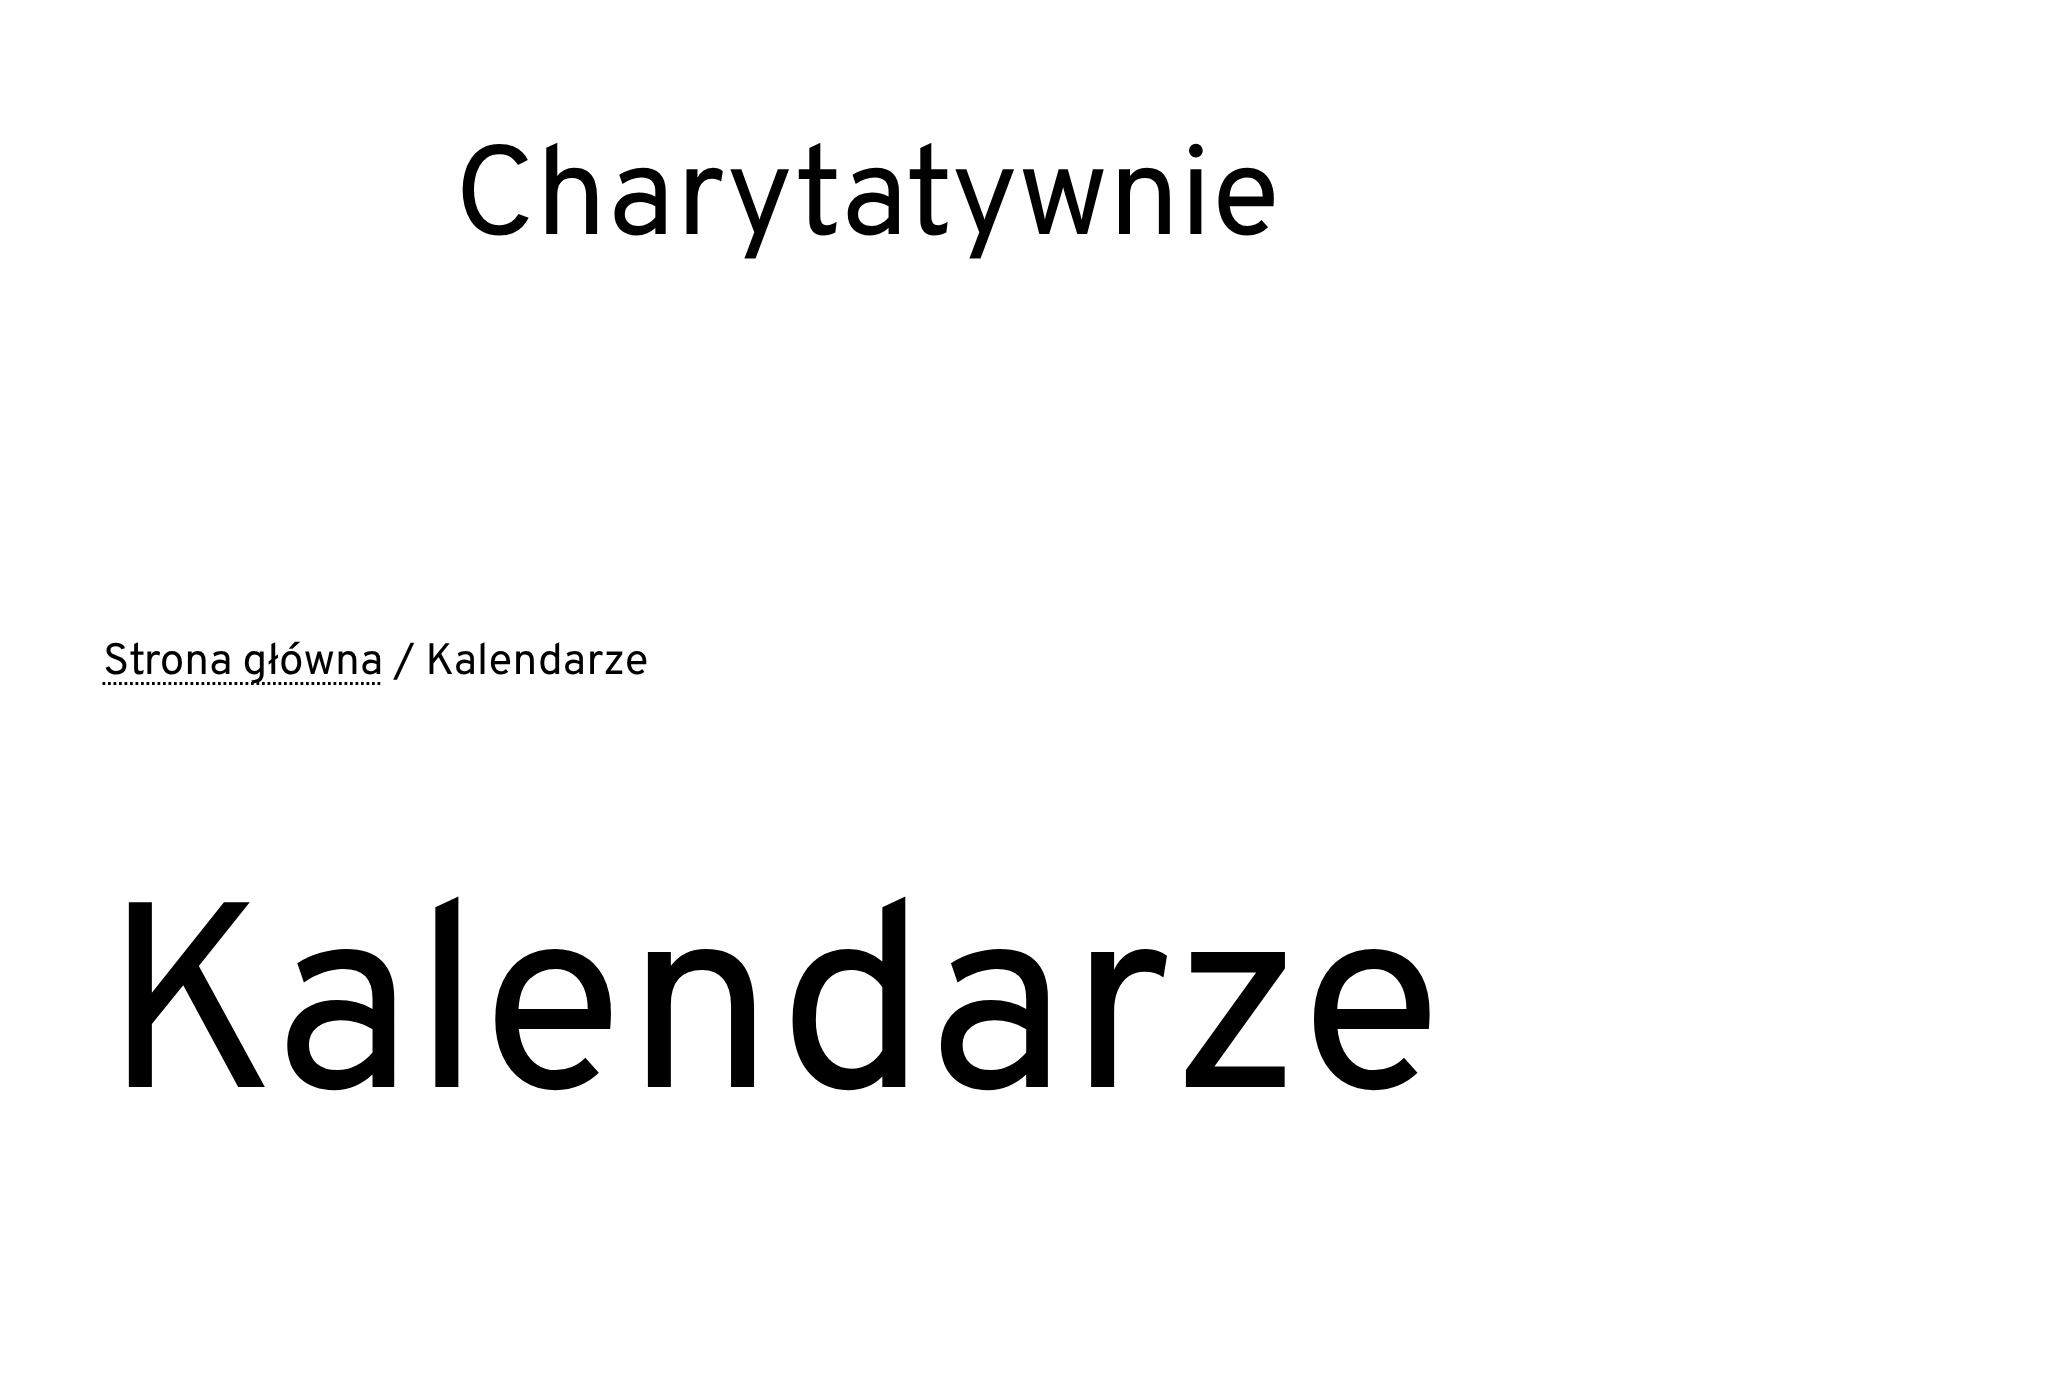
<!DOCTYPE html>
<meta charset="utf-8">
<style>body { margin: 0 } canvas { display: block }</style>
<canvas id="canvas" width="2053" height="1396"></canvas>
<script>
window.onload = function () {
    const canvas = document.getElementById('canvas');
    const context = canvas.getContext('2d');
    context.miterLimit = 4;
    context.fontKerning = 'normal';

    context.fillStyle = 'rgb(255, 255, 255)';
    context.fillRect(0, 0, 2053, 1396);
    context.beginPath();
    context.moveTo(102.5, 683.5);
    context.lineTo(383, 683.5);
    context.strokeStyle = 'rgb(0, 0, 0)';
    context.lineWidth = 2.8;
    context.setLineDash([2.75, 2.75]);
    context.stroke();
    context.font = '126.5px Overpass';
    context.fillStyle = 'rgb(0, 0, 0)';
    context.fillText('Charytatywnie', 454, 234);
    context.font = '44px Overpass';
    context.fillText('Strona główna / Kalendarze', 103, 674);
    context.font = '264px Overpass';
    context.fillText('Kalendarze', 103, 1087);
};
</script>
